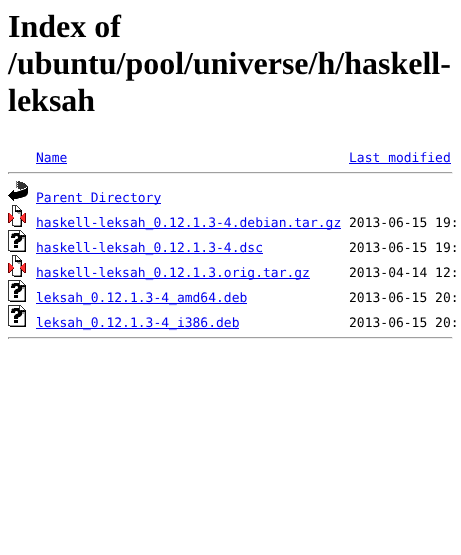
<!DOCTYPE html>
<meta charset="utf-8">
<style>body { margin: 0 } canvas { display: block }</style>
<canvas id="canvas" width="461" height="555"></canvas>
<img id="img1" src="images/1.png" hidden>
<img id="img2" src="images/2.png" hidden>
<img id="img3" src="images/3.png" hidden>
<script>
window.onload = function () {
    const canvas = document.getElementById('canvas');
    const context = canvas.getContext('2d');
    context.miterLimit = 4;
    context.fontKerning = 'normal';

    context.fillStyle = 'rgb(255, 255, 255)';
    context.fillRect(0, 0, 461, 555);
    context.fillStyle = 'rgb(0, 0, 238)';
    context.fillRect(36, 163, 31, 1);
    context.fillRect(349, 163, 102, 1);
    context.fillStyle = 'rgb(159, 159, 159)';
    context.fillRect(8, 172, 445, 1);
    context.fillStyle = 'rgb(238, 238, 238)';
    context.fillRect(452, 172, 1, 2);
    context.fillRect(8, 173, 445, 1);
    context.fillStyle = 'rgb(159, 159, 159)';
    context.fillRect(8, 172, 1, 2);
    context.drawImage(document.getElementById('img1'), 8, 181, 20, 20);
    context.fillStyle = 'rgb(0, 0, 238)';
    context.fillRect(36, 203, 125, 1);
    context.drawImage(document.getElementById('img2'), 8, 205, 18, 22);
    context.fillRect(36, 228, 305, 1);
    context.drawImage(document.getElementById('img3'), 8, 230, 18, 22);
    context.fillRect(36, 253, 227, 1);
    context.drawImage(document.getElementById('img2'), 8, 255, 18, 22);
    context.fillRect(36, 278, 274, 1);
    context.drawImage(document.getElementById('img3'), 8, 280, 18, 22);
    context.fillRect(36, 303, 211, 1);
    context.drawImage(document.getElementById('img3'), 8, 305, 18, 22);
    context.fillRect(36, 328, 203, 1);
    context.fillStyle = 'rgb(159, 159, 159)';
    context.fillRect(8, 337, 445, 1);
    context.fillStyle = 'rgb(238, 238, 238)';
    context.fillRect(452, 337, 1, 2);
    context.fillRect(8, 338, 445, 1);
    context.fillStyle = 'rgb(159, 159, 159)';
    context.fillRect(8, 337, 1, 2);
    context.font = 'bold 32px Liberation Serif';
    context.fillStyle = 'rgb(0, 0, 0)';
    context.fillText('Index of', 8, 37);
    context.fillText('/ubuntu/pool/universe/h/haskell-', 8, 74);
    context.fillText('leksah', 8, 111);
    context.font = '13px DejaVu Sans Mono';
    context.fillStyle = 'rgb(0, 0, 238)';
    context.fillText('Name', 36, 162);
    context.fillText('Last modified', 349, 162);
    context.fillText('Parent Directory', 36, 202);
    context.fillText('haskell-leksah_0.12.1.3-4.debian.tar.gz', 36, 227);
    context.fillStyle = 'rgb(0, 0, 0)';
    context.fillText('2013-06-15 19:', 349, 227);
    context.fillStyle = 'rgb(0, 0, 238)';
    context.fillText('haskell-leksah_0.12.1.3-4.dsc', 36, 252);
    context.fillStyle = 'rgb(0, 0, 0)';
    context.fillText('2013-06-15 19:', 349, 252);
    context.fillStyle = 'rgb(0, 0, 238)';
    context.fillText('haskell-leksah_0.12.1.3.orig.tar.gz', 36, 277);
    context.fillStyle = 'rgb(0, 0, 0)';
    context.fillText('2013-04-14 12:', 349, 277);
    context.fillStyle = 'rgb(0, 0, 238)';
    context.fillText('leksah_0.12.1.3-4_amd64.deb', 36, 302);
    context.fillStyle = 'rgb(0, 0, 0)';
    context.fillText('2013-06-15 20:', 349, 302);
    context.fillStyle = 'rgb(0, 0, 238)';
    context.fillText('leksah_0.12.1.3-4_i386.deb', 36, 327);
    context.fillStyle = 'rgb(0, 0, 0)';
    context.fillText('2013-06-15 20:', 349, 327);
};
</script>
